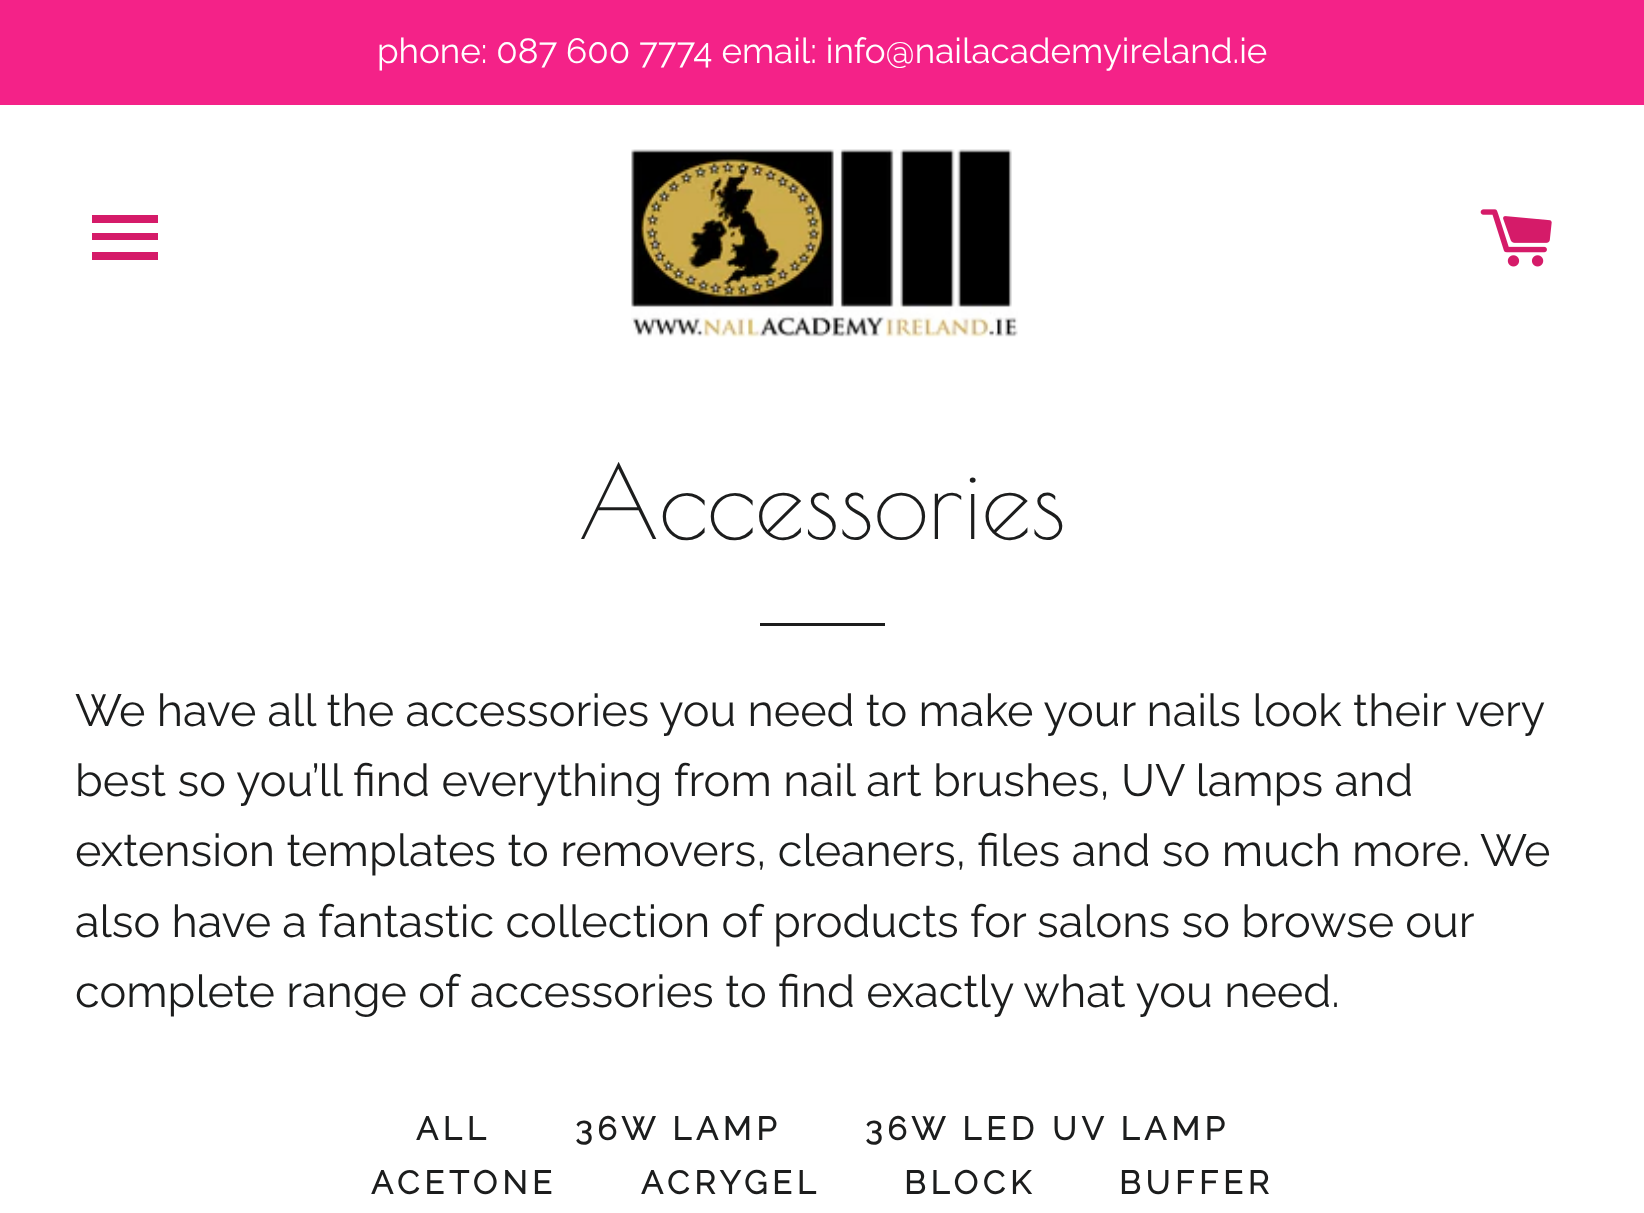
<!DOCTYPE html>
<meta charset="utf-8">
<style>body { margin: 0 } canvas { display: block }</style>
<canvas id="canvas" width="1644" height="1213"></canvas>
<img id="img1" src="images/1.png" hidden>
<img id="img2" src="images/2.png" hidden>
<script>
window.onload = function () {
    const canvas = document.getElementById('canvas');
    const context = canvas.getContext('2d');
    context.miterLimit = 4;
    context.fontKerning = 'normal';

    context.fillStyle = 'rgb(255, 255, 255)';
    context.fillRect(0, 0, 1644, 1213);
    context.fillStyle = 'rgb(244, 34, 136)';
    context.fillRect(0, 0, 1644, 105);
    context.fillStyle = 'rgb(213, 27, 105)';
    context.beginPath();
    context.moveTo(92, 215);
    context.lineTo(158, 215);
    context.lineTo(158, 223);
    context.lineTo(92, 223);
    context.closePath();
    context.moveTo(92, 233);
    context.lineTo(158, 233);
    context.lineTo(158, 240);
    context.lineTo(92, 240);
    context.closePath();
    context.moveTo(92, 252);
    context.lineTo(158, 252);
    context.lineTo(158, 260);
    context.lineTo(92, 260);
    context.closePath();
    context.fill();
    context.drawImage(document.getElementById('img1'), 631, 149, 387, 189);
    context.drawImage(document.getElementById('img2'), 1480, 209, 72, 58);
    context.fillStyle = 'rgb(28, 29, 29)';
    context.fillRect(760, 623, 125, 3);
    context.font = '100 35px Raleway';
    context.fillStyle = 'rgb(255, 255, 255)';
    context.fillText('phone: 087 600 7774 email: info@nailacademyireland.ie', 377, 63);
    context.font = '100.5px Poiret One';
    context.fillStyle = 'rgb(28, 29, 29)';
    context.fillText('Accessories', 578, 539);
    context.wordSpacing = '-0.25px';
    context.font = '100 45px Raleway';
    context.fillText('We have all the accessories you need to make your nails look their very', 75, 726);
    context.wordSpacing = '0px';
    context.fillText('best so you’ll find everything from nail art brushes, UV lamps and', 75, 796);
    context.wordSpacing = '-0.1px';
    context.fillText('extension templates to removers, cleaners, files and so much more. We', 75, 866);
    context.wordSpacing = '-0.25px';
    context.fillText('also have a fantastic collection of products for salons so browse our', 75, 937);
    context.wordSpacing = '-0.1px';
    context.fillText('complete range of accessories to find exactly what you need.', 75, 1007);
    context.letterSpacing = '4.9px';
    context.wordSpacing = '0px';
    context.font = 'bold 32.5px Raleway';
    context.fillText('ALL', 416, 1140);
    context.fillText('36W LAMP', 575, 1140);
    context.fillText('36W LED UV LAMP', 865, 1140);
    context.fillText('ACETONE', 371, 1194);
    context.fillText('ACRYGEL', 641, 1194);
    context.fillText('BLOCK', 904, 1194);
    context.fillText('BUFFER', 1119, 1194);
};
</script>
